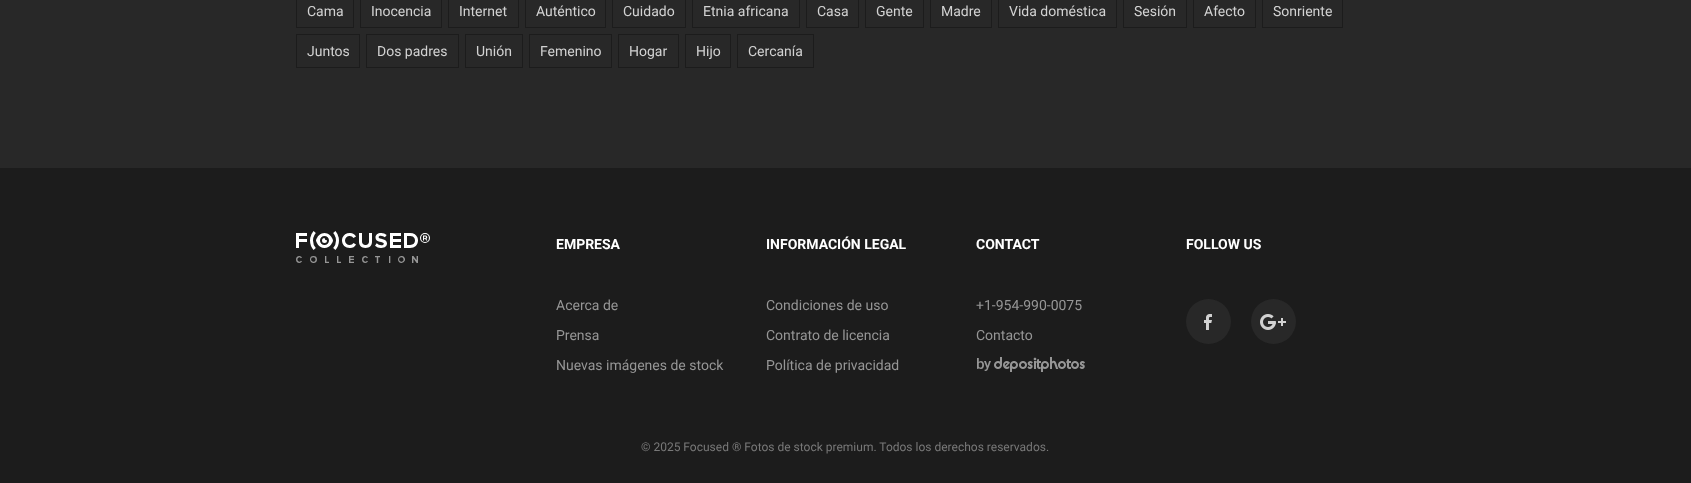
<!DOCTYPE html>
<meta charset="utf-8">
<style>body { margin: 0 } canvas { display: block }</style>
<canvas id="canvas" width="1691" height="483"></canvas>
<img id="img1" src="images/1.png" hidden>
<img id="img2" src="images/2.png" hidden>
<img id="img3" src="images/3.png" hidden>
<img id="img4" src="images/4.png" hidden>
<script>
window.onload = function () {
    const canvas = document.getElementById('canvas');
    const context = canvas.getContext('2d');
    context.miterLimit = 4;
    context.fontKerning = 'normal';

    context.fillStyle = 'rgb(40, 40, 40)';
    context.fillRect(0, 0, 1691, 483);
    context.strokeStyle = 'rgb(28, 28, 28)';
    context.strokeRect(296.5, -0.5, 57, 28);
    context.strokeRect(360.5, -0.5, 81, 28);
    context.strokeRect(448.5, -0.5, 70, 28);
    context.strokeRect(525.5, -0.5, 80, 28);
    context.strokeRect(612.5, -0.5, 73, 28);
    context.strokeRect(692.5, -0.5, 107, 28);
    context.strokeRect(806.5, -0.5, 52, 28);
    context.strokeRect(865.5, -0.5, 58, 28);
    context.strokeRect(930.5, -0.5, 61, 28);
    context.strokeRect(998.5, -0.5, 118, 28);
    context.strokeRect(1123.5, -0.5, 63, 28);
    context.strokeRect(1193.5, -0.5, 62, 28);
    context.strokeRect(1262.5, -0.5, 80, 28);
    context.strokeRect(296.5, 34.5, 63, 33);
    context.strokeRect(366.5, 34.5, 92, 33);
    context.strokeRect(465.5, 34.5, 57, 33);
    context.strokeRect(529.5, 34.5, 82, 33);
    context.strokeRect(618.5, 34.5, 60, 33);
    context.strokeRect(685.5, 34.5, 45, 33);
    context.strokeRect(737.5, 34.5, 76, 33);
    context.fillStyle = 'rgb(28, 28, 28)';
    context.fillRect(0, 168, 1691, 315);
    context.drawImage(document.getElementById('img1'), 296, 231, 134, 32);
    context.drawImage(document.getElementById('img2'), 977, 357, 108, 15);
    context.fillStyle = 'rgb(40, 40, 40)';
    context.beginPath();
    context.arc(1208.5, 321.5, 22.5, 0, 2 * Math.PI);
    context.fill();
    context.drawImage(document.getElementById('img3'), 1204, 314, 8, 16);
    context.beginPath();
    context.arc(1273.5, 321.5, 22.5, 0, 2 * Math.PI);
    context.fill();
    context.drawImage(document.getElementById('img4'), 1260, 314, 26, 16);
    context.font = '14px Roboto';
    context.fillStyle = 'rgb(210, 210, 210)';
    context.fillText('Cama', 307, 16);
    context.fillText('Inocencia', 371, 16);
    context.fillText('Internet', 459, 16);
    context.fillText('Auténtico', 536, 16);
    context.fillText('Cuidado', 623, 16);
    context.fillText('Etnia africana', 703, 16);
    context.fillText('Casa', 817, 16);
    context.fillText('Gente', 876, 16);
    context.fillText('Madre', 941, 16);
    context.fillText('Vida doméstica', 1009, 16);
    context.fillText('Sesión', 1134, 16);
    context.fillText('Afecto', 1204, 16);
    context.fillText('Sonriente', 1273, 16);
    context.fillText('Juntos', 307, 56);
    context.fillText('Dos padres', 377, 56);
    context.fillText('Unión', 476, 56);
    context.fillText('Femenino', 540, 56);
    context.fillText('Hogar', 629, 56);
    context.fillText('Hijo', 696, 56);
    context.fillText('Cercanía', 748, 56);
    context.font = 'bold 14px Roboto';
    context.fillStyle = 'rgb(255, 255, 255)';
    context.fillText('EMPRESA', 556, 249);
    context.font = '14px Roboto';
    context.fillStyle = 'rgb(150, 150, 150)';
    context.fillText('Acerca de', 556, 310);
    context.fillText('Prensa', 556, 340);
    context.fillText('Nuevas imágenes de stock', 556, 370);
    context.font = 'bold 14px Roboto';
    context.fillStyle = 'rgb(255, 255, 255)';
    context.fillText('INFORMACIÓN LEGAL', 766, 249);
    context.font = '14px Roboto';
    context.fillStyle = 'rgb(150, 150, 150)';
    context.fillText('Condiciones de uso', 766, 310);
    context.fillText('Contrato de licencia', 766, 340);
    context.fillText('Política de privacidad', 766, 370);
    context.font = 'bold 14px Roboto';
    context.fillStyle = 'rgb(255, 255, 255)';
    context.fillText('CONTACT', 976, 249);
    context.font = '14px Roboto';
    context.fillStyle = 'rgb(150, 150, 150)';
    context.fillText('+1-954-990-0075', 976, 310);
    context.fillText('Contacto', 976, 340);
    context.font = 'bold 14px Roboto';
    context.fillStyle = 'rgb(255, 255, 255)';
    context.fillText('FOLLOW US', 1186, 249);
    context.font = '12px Roboto';
    context.fillStyle = 'rgb(120, 120, 120)';
    context.fillText('© 2025 Focused ® Fotos de stock premium. Todos los derechos reservados.', 641, 451);
};
</script>
